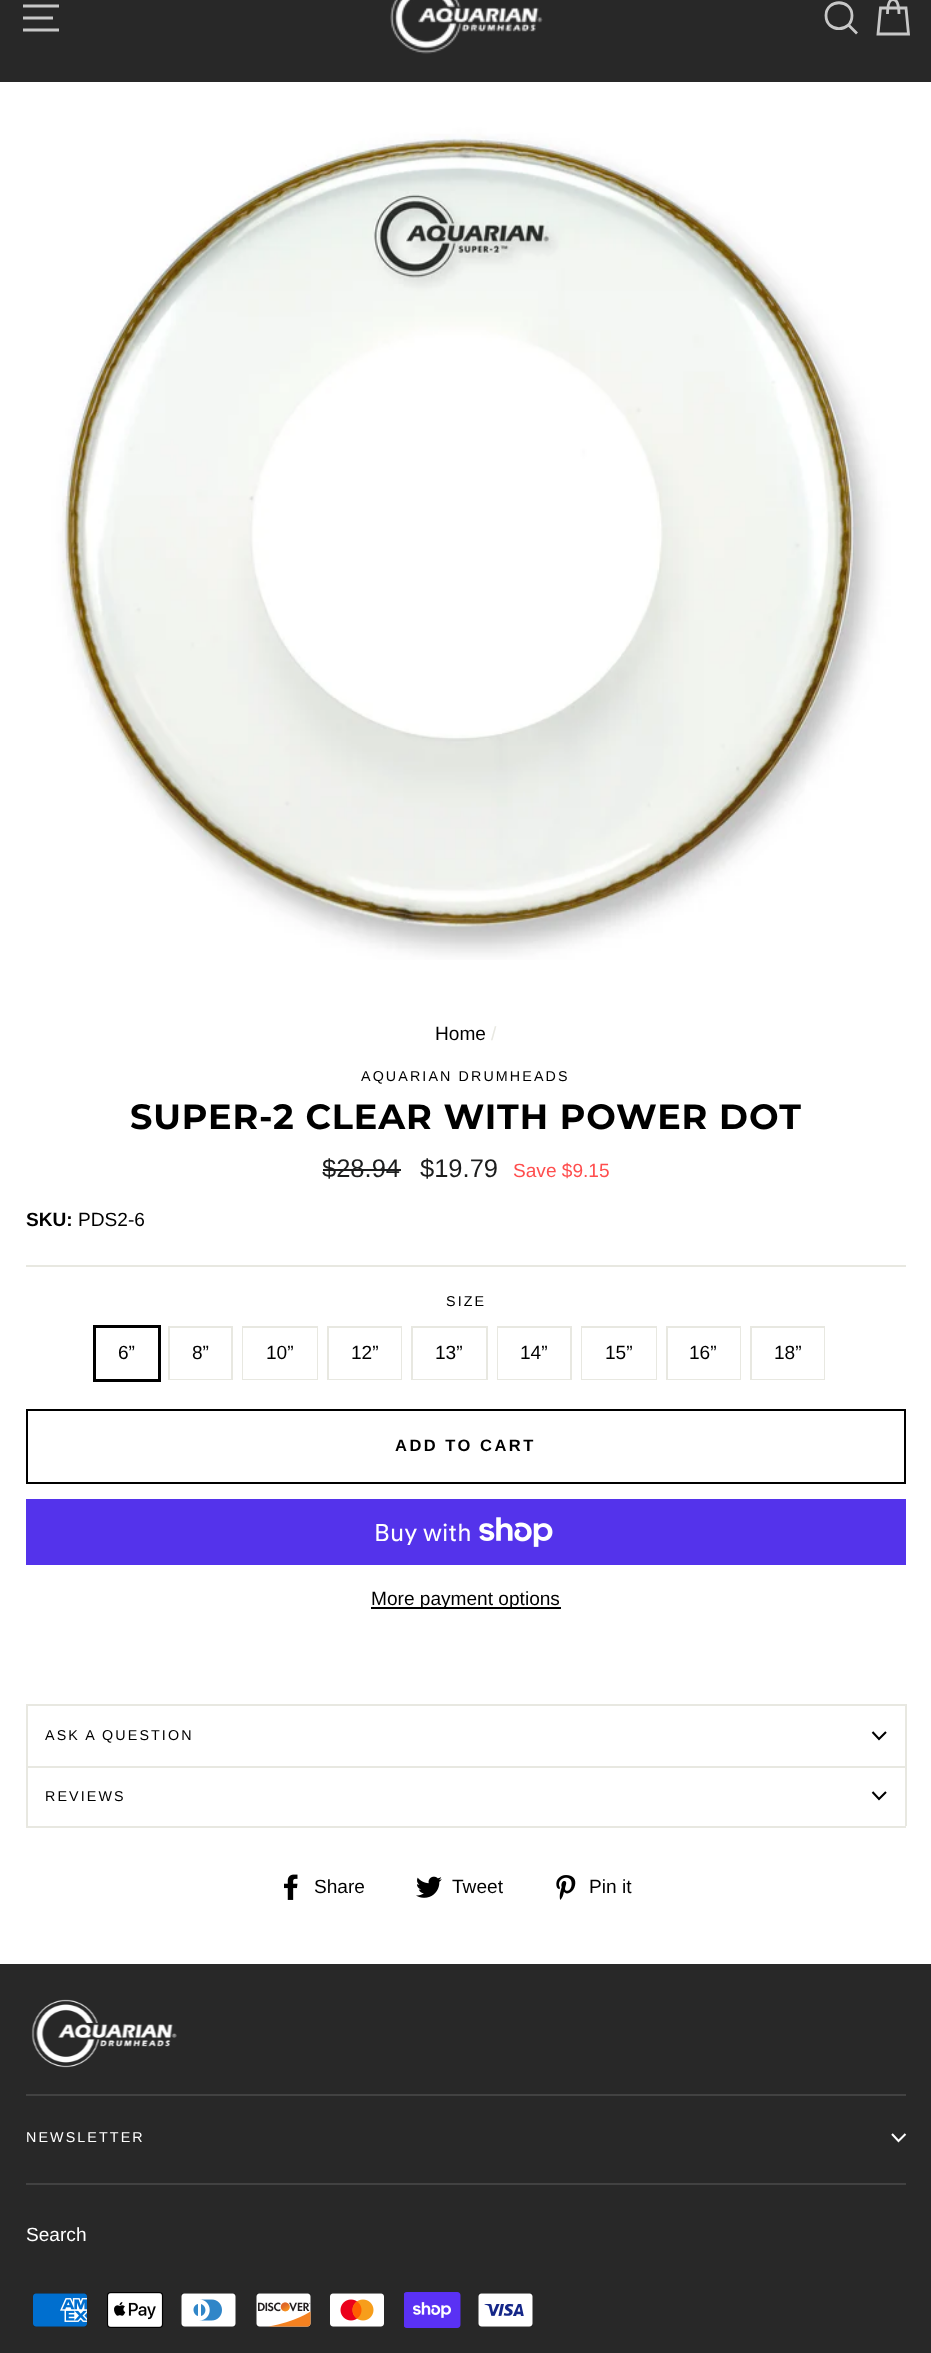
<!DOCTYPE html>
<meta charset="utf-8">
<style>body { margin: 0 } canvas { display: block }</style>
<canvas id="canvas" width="931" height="2353"></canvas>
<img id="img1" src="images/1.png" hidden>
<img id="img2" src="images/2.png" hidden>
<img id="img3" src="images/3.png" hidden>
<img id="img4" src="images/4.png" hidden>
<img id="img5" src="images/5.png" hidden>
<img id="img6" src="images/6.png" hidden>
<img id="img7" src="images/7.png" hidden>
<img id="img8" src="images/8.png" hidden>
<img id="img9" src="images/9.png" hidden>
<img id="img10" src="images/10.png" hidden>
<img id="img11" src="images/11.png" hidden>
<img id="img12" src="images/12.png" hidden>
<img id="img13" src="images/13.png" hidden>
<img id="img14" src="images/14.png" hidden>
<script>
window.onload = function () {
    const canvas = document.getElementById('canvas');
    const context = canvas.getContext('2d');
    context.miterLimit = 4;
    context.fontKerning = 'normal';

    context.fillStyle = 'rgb(255, 255, 255)';
    context.fillRect(0, 0, 931, 2353);
    context.fillStyle = 'rgb(40, 40, 40)';
    context.fillRect(0, 0, 931, 82);
    context.beginPath();
    context.moveTo(23, 6);
    context.lineTo(59, 6);
    context.moveTo(23, 18);
    context.lineTo(53, 18);
    context.moveTo(23, 30);
    context.lineTo(59, 30);
    context.strokeStyle = 'rgb(199, 199, 199)';
    context.lineWidth = 2.8;
    context.stroke();
    context.drawImage(document.getElementById('img1'), 390, 0, 153, 54);
    context.beginPath();
    context.moveTo(852, 15.5);
    context.bezierCurveTo(852, 33, 826, 33, 826, 15.5);
    context.bezierCurveTo(826, -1.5, 852, -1.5, 852, 15.5);
    context.closePath();
    context.moveTo(857, 33.5);
    context.lineTo(848.5, 25);
    context.stroke();
    context.beginPath();
    context.moveTo(887.5, 14);
    context.bezierCurveTo(887.5, 2.5, 890, -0.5, 893, -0.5);
    context.bezierCurveTo(896.5, -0.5, 899, 2.5, 899, 14);
    context.moveTo(880.5, 8);
    context.lineTo(906, 8);
    context.lineTo(908.5, 34);
    context.lineTo(878, 34);
    context.closePath();
    context.stroke();
    context.drawImage(document.getElementById('img2'), 0, 82, 931, 878);
    context.fillStyle = 'rgb(28, 29, 29)';
    context.fillRect(323, 1169, 78, 2);
    context.fillStyle = 'rgb(232, 232, 225)';
    context.fillRect(26, 1265, 880, 2);
    context.strokeStyle = 'rgb(0, 0, 0)';
    context.lineWidth = 3;
    context.strokeRect(94.5, 1326.5, 65, 54);
    context.strokeStyle = 'rgb(232, 232, 225)';
    context.lineWidth = 2;
    context.strokeRect(169, 1327, 63, 52);
    context.fillStyle = 'rgb(255, 255, 255)';
    context.fillRect(170, 1378, 61, 1);
    context.strokeRect(243, 1327, 74, 52);
    context.fillRect(243, 1328, 74, 51);
    context.strokeRect(328, 1327, 73, 52);
    context.fillRect(329, 1328, 72, 51);
    context.strokeRect(412, 1327, 75, 52);
    context.fillRect(413, 1378, 73, 1);
    context.strokeRect(498, 1327, 73, 52);
    context.fillRect(498, 1328, 72, 51);
    context.strokeRect(582, 1327, 74, 52);
    context.fillRect(582, 1328, 74, 51);
    context.strokeRect(667, 1327, 73, 52);
    context.fillRect(668, 1328, 72, 51);
    context.strokeRect(751, 1327, 73, 52);
    context.fillRect(752, 1328, 72, 51);
    context.strokeStyle = 'rgb(0, 0, 0)';
    context.strokeRect(27, 1410, 878, 73);
    context.fillStyle = 'rgb(84, 51, 235)';
    context.fillRect(26, 1499, 880, 66);
    context.drawImage(document.getElementById('img3'), 479, 1517, 74, 30);
    context.fillStyle = 'rgb(0, 0, 0)';
    context.fillRect(371, 1607, 190, 2);
    context.fillStyle = 'rgb(232, 232, 225)';
    context.fillRect(26, 1826, 880, 2);
    context.fillRect(26, 1704, 880, 2);
    context.fillRect(905, 1704, 2, 62);
    context.fillRect(26, 1704, 2, 62);
    context.beginPath();
    context.moveTo(872.5, 1732);
    context.lineTo(879, 1739);
    context.lineTo(886, 1732);
    context.lineWidth = 2.1;
    context.stroke();
    context.fillRect(26, 1766, 880, 2);
    context.fillRect(905, 1766, 2, 60);
    context.fillRect(26, 1766, 2, 60);
    context.beginPath();
    context.moveTo(872.5, 1792);
    context.lineTo(879, 1799);
    context.lineTo(886, 1792);
    context.stroke();
    context.drawImage(document.getElementById('img4'), 284, 1874, 14, 26);
    context.drawImage(document.getElementById('img5'), 416, 1876, 26, 22);
    context.drawImage(document.getElementById('img6'), 556, 1875, 20, 25);
    context.fillStyle = 'rgb(40, 40, 40)';
    context.fillRect(0, 1964, 931, 389);
    context.drawImage(document.getElementById('img7'), 31, 1999, 146, 69);
    context.fillStyle = 'rgb(66, 66, 66)';
    context.fillRect(26, 2094, 880, 2);
    context.beginPath();
    context.moveTo(892, 2134);
    context.lineTo(898.5, 2141);
    context.lineTo(905.5, 2134);
    context.strokeStyle = 'rgb(255, 255, 255)';
    context.stroke();
    context.fillRect(26, 2183, 880, 2);
    context.drawImage(document.getElementById('img8'), 33, 2293, 54, 34);
    context.drawImage(document.getElementById('img9'), 107, 2292, 57, 36);
    context.drawImage(document.getElementById('img10'), 181, 2293, 55, 34);
    context.drawImage(document.getElementById('img11'), 256, 2293, 55, 34);
    context.drawImage(document.getElementById('img12'), 330, 2293, 54, 34);
    context.drawImage(document.getElementById('img13'), 404, 2292, 57, 36);
    context.drawImage(document.getElementById('img14'), 478, 2293, 55, 34);
    context.font = '19.1px Liberation Sans';
    context.fillStyle = 'rgb(0, 0, 0)';
    context.fillText('Home', 435, 1040);
    context.fillStyle = 'rgb(232, 232, 225)';
    context.fillText('/', 491, 1040);
    context.letterSpacing = '2.1px';
    context.font = '14.3px Liberation Sans';
    context.fillStyle = 'rgb(0, 0, 0)';
    context.fillText('AQUARIAN DRUMHEADS', 361, 1081);
    context.letterSpacing = '0.9px';
    context.font = 'bold 35.1px Montserrat';
    context.fillText('SUPER-2 CLEAR WITH POWER DOT', 130, 1129);
    context.letterSpacing = '0px';
    context.font = '25.5px Liberation Sans';
    context.fillStyle = 'rgb(28, 29, 29)';
    context.fillText('$28.94', 322, 1177);
    context.fillText('$19.79', 420, 1177);
    context.font = '19.1px Liberation Sans';
    context.fillStyle = 'rgb(255, 78, 78)';
    context.fillText('Save $9.15', 513, 1177);
    context.font = 'bold 19.1px Liberation Sans';
    context.fillStyle = 'rgb(0, 0, 0)';
    context.fillText('SKU:', 26, 1226);
    context.font = '19.1px Liberation Sans';
    context.fillText('PDS2-6', 78, 1226);
    context.letterSpacing = '2.1px';
    context.font = '14.3px Liberation Sans';
    context.fillText('SIZE', 446, 1306);
    context.letterSpacing = '0px';
    context.font = '19.1px Liberation Sans';
    context.fillText('6”', 118, 1359);
    context.fillText('8”', 192, 1359);
    context.fillText('10”', 266, 1359);
    context.fillText('12”', 351, 1359);
    context.fillText('13”', 435, 1359);
    context.fillText('14”', 520, 1359);
    context.fillText('15”', 605, 1359);
    context.fillText('16”', 689, 1359);
    context.fillText('18”', 774, 1359);
    context.letterSpacing = '2.5px';
    context.font = 'bold 16.5px Liberation Sans';
    context.fillText('ADD TO CART', 395, 1451);
    context.letterSpacing = '0px';
    context.font = '24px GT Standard';
    context.fillStyle = 'rgb(255, 255, 255)';
    context.fillText('Buy with', 374, 1541);
    context.font = '19.1px Liberation Sans';
    context.fillStyle = 'rgb(0, 0, 0)';
    context.fillText('More payment options', 371, 1605);
    context.letterSpacing = '2.1px';
    context.font = '14.3px Liberation Sans';
    context.fillText('ASK A QUESTION', 45, 1740);
    context.fillText('REVIEWS', 45, 1801);
    context.letterSpacing = '0px';
    context.font = '19.1px Liberation Sans';
    context.fillText('Share', 314, 1893);
    context.fillText('Tweet', 452, 1893);
    context.fillText('Pin it', 589, 1893);
    context.letterSpacing = '2.1px';
    context.font = '14.3px Liberation Sans';
    context.fillStyle = 'rgb(255, 255, 255)';
    context.fillText('NEWSLETTER', 26, 2142);
    context.letterSpacing = '0px';
    context.font = '19.1px Liberation Sans';
    context.fillText('Search', 26, 2241);
};
</script>
